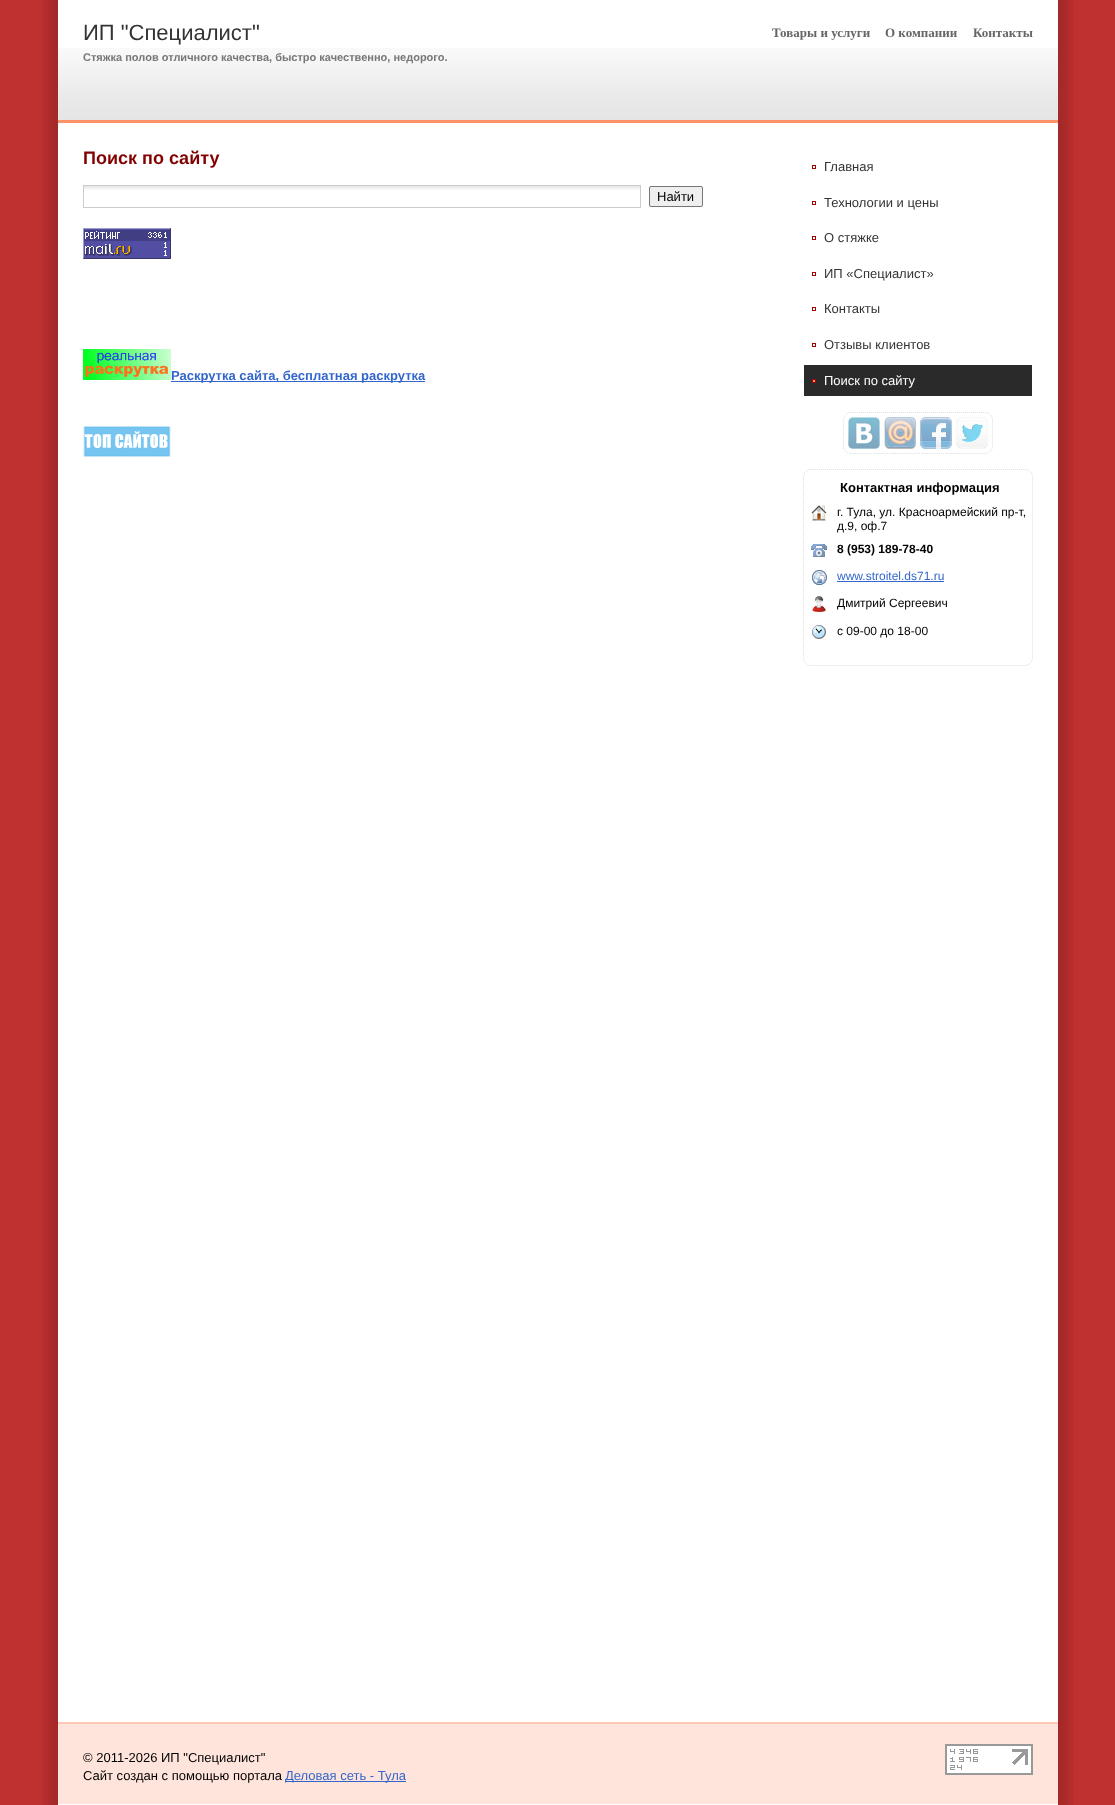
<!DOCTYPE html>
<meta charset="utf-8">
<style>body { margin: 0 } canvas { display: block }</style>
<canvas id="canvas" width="1115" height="1805"></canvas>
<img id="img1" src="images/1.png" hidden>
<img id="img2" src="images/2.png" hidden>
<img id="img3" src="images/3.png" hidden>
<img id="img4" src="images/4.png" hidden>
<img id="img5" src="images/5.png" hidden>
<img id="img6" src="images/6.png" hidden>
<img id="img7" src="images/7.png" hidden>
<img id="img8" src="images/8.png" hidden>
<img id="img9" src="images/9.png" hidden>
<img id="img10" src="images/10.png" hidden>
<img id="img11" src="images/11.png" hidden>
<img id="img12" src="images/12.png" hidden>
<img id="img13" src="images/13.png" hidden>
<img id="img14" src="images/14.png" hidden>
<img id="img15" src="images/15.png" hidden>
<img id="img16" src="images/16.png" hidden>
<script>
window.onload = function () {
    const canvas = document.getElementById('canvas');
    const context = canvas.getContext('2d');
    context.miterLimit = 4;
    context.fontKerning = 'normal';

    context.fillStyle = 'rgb(191, 48, 48)';
    context.fillRect(0, 0, 1115, 1805);
    context.drawImage(document.getElementById('img1'), 42, 0, 1032, 1805);
    context.fillStyle = 'rgb(255, 255, 255)';
    context.fillRect(58, 0, 1000, 1805);
    context.drawImage(document.getElementById('img2'), 58, 48, 1000, 72);
    context.fillStyle = 'rgb(255, 145, 105)';
    context.fillRect(58, 120, 1000, 3);
    context.drawImage(document.getElementById('img3'), 84, 186, 556, 4);
    context.strokeStyle = 'rgb(204, 204, 204)';
    context.strokeRect(83.5, 185.5, 557, 22);
    context.fillStyle = 'rgb(239, 239, 239)';
    context.beginPath();
    context.roundRect(649.5, 186.5, 53, 20, 1.5);
    context.fill();
    context.strokeStyle = 'rgb(118, 118, 118)';
    context.stroke();
    context.drawImage(document.getElementById('img4'), 83, 228, 88, 31);
    context.drawImage(document.getElementById('img5'), 83, 349, 88, 31);
    context.fillStyle = 'rgb(51, 102, 204)';
    context.fillRect(171, 381, 254, 1);
    context.drawImage(document.getElementById('img6'), 83, 426, 88, 31);
    context.strokeStyle = 'rgb(166, 0, 0)';
    context.strokeRect(812.5, 165.5, 3, 3);
    context.strokeRect(812.5, 201.5, 3, 3);
    context.strokeRect(812.5, 236.5, 3, 3);
    context.strokeRect(812.5, 272.5, 3, 3);
    context.strokeRect(812.5, 307.5, 3, 3);
    context.strokeRect(812.5, 343.5, 3, 3);
    context.fillStyle = 'rgb(42, 42, 42)';
    context.fillRect(804, 365, 228, 31);
    context.fillStyle = 'rgb(255, 145, 105)';
    context.beginPath();
    context.rect(812.5, 379.5, 3, 3);
    context.fill();
    context.stroke();
    context.beginPath();
    context.moveTo(851, 412.5);
    context.lineTo(985, 412.5);
    context.bezierCurveTo(989, 412.5, 992.5, 416, 992.5, 420);
    context.lineTo(992.5, 446);
    context.bezierCurveTo(992.5, 450, 989, 453.5, 985, 453.5);
    context.lineTo(851, 453.5);
    context.bezierCurveTo(847, 453.5, 843.5, 450, 843.5, 446);
    context.lineTo(843.5, 420);
    context.bezierCurveTo(843.5, 416, 847, 412.5, 851, 412.5);
    context.closePath();
    context.strokeStyle = 'rgb(221, 221, 221)';
    context.setLineDash([1, 1]);
    context.stroke();
    context.drawImage(document.getElementById('img7'), 848, 417, 32, 32);
    context.drawImage(document.getElementById('img8'), 884, 417, 32, 32);
    context.drawImage(document.getElementById('img9'), 920, 417, 32, 32);
    context.drawImage(document.getElementById('img10'), 956, 417, 32, 32);
    context.beginPath();
    context.moveTo(811, 469.5);
    context.lineTo(1025, 469.5);
    context.bezierCurveTo(1029, 469.5, 1032.5, 473, 1032.5, 477);
    context.lineTo(1032.5, 658);
    context.bezierCurveTo(1032.5, 662, 1029, 665.5, 1025, 665.5);
    context.lineTo(811, 665.5);
    context.bezierCurveTo(807, 665.5, 803.5, 662, 803.5, 658);
    context.lineTo(803.5, 477);
    context.bezierCurveTo(803.5, 473, 807, 469.5, 811, 469.5);
    context.closePath();
    context.stroke();
    context.drawImage(document.getElementById('img11'), 811, 505, 16, 16);
    context.drawImage(document.getElementById('img12'), 811, 544, 16, 13);
    context.drawImage(document.getElementById('img13'), 812, 570, 15, 15);
    context.fillStyle = 'rgb(51, 102, 204)';
    context.fillRect(837, 581, 107, 1);
    context.drawImage(document.getElementById('img14'), 812, 596, 14, 16);
    context.drawImage(document.getElementById('img15'), 812, 625, 14, 14);
    context.fillStyle = 'rgb(255, 228, 219)';
    context.fillRect(58, 1724, 1000, 80);
    context.fillStyle = 'rgb(255, 200, 181)';
    context.fillRect(58, 1722, 1000, 2);
    context.fillStyle = 'rgb(51, 102, 204)';
    context.fillRect(285, 1781, 121, 1);
    context.drawImage(document.getElementById('img16'), 945, 1744, 88, 31);
    context.font = '22px Liberation Sans';
    context.fillStyle = 'rgb(51, 51, 51)';
    context.fillText('ИП "Специалист"', 83, 40);
    context.font = 'bold 11px Liberation Sans';
    context.fillStyle = 'rgb(119, 119, 119)';
    context.fillText('Стяжка полов отличного качества, быстро качественно, недорого.', 83, 61);
    context.font = 'bold 13px Liberation Serif';
    context.fillStyle = 'rgb(102, 102, 102)';
    context.fillText('Товары и услуги', 772, 37);
    context.fillText('О компании', 885, 37);
    context.fillText('Контакты', 973, 37);
    context.font = 'bold 18px Liberation Sans';
    context.fillStyle = 'rgb(130, 0, 0)';
    context.fillText('Поиск по сайту', 83, 164);
    context.font = '13px Liberation Sans';
    context.fillStyle = 'rgb(0, 0, 0)';
    context.fillText('Найти', 657, 201);
    context.font = 'bold 13px Liberation Sans';
    context.fillStyle = 'rgb(51, 102, 204)';
    context.fillText('Раскрутка сайта, бесплатная раскрутка', 171, 380);
    context.font = '13px Liberation Sans';
    context.fillStyle = 'rgb(51, 51, 51)';
    context.fillText('Главная', 824, 171);
    context.fillText('Технологии и цены', 824, 207);
    context.fillText('О стяжке', 824, 242);
    context.fillText('ИП «Специалист»', 824, 278);
    context.fillText('Контакты', 824, 313);
    context.fillText('Отзывы клиентов', 824, 349);
    context.fillStyle = 'rgb(255, 255, 255)';
    context.fillText('Поиск по сайту', 824, 385);
    context.font = 'bold 13px Liberation Sans';
    context.fillStyle = 'rgb(0, 0, 0)';
    context.fillText('Контактная информация', 840, 492);
    context.font = '12px Liberation Sans';
    context.fillText('г. Тула, ул. Красноармейский пр-т,', 837, 516);
    context.fillText('д.9, оф.7', 837, 530);
    context.font = 'bold 12px Liberation Sans';
    context.fillText('8 (953) 189-78-40', 837, 553);
    context.font = '12px Liberation Sans';
    context.fillStyle = 'rgb(51, 102, 204)';
    context.fillText('www.stroitel.ds71.ru', 837, 580);
    context.fillStyle = 'rgb(0, 0, 0)';
    context.fillText('Дмитрий Сергеевич', 837, 607);
    context.fillText('с 09-00 до 18-00', 837, 635);
    context.font = '13px Liberation Sans';
    context.fillText('© 2011-2026 ИП "Специалист"', 83, 1762);
    context.fillText('Сайт создан с помощью портала', 83, 1780);
    context.fillStyle = 'rgb(51, 102, 204)';
    context.fillText('Деловая сеть - Тула', 285, 1780);
};
</script>
